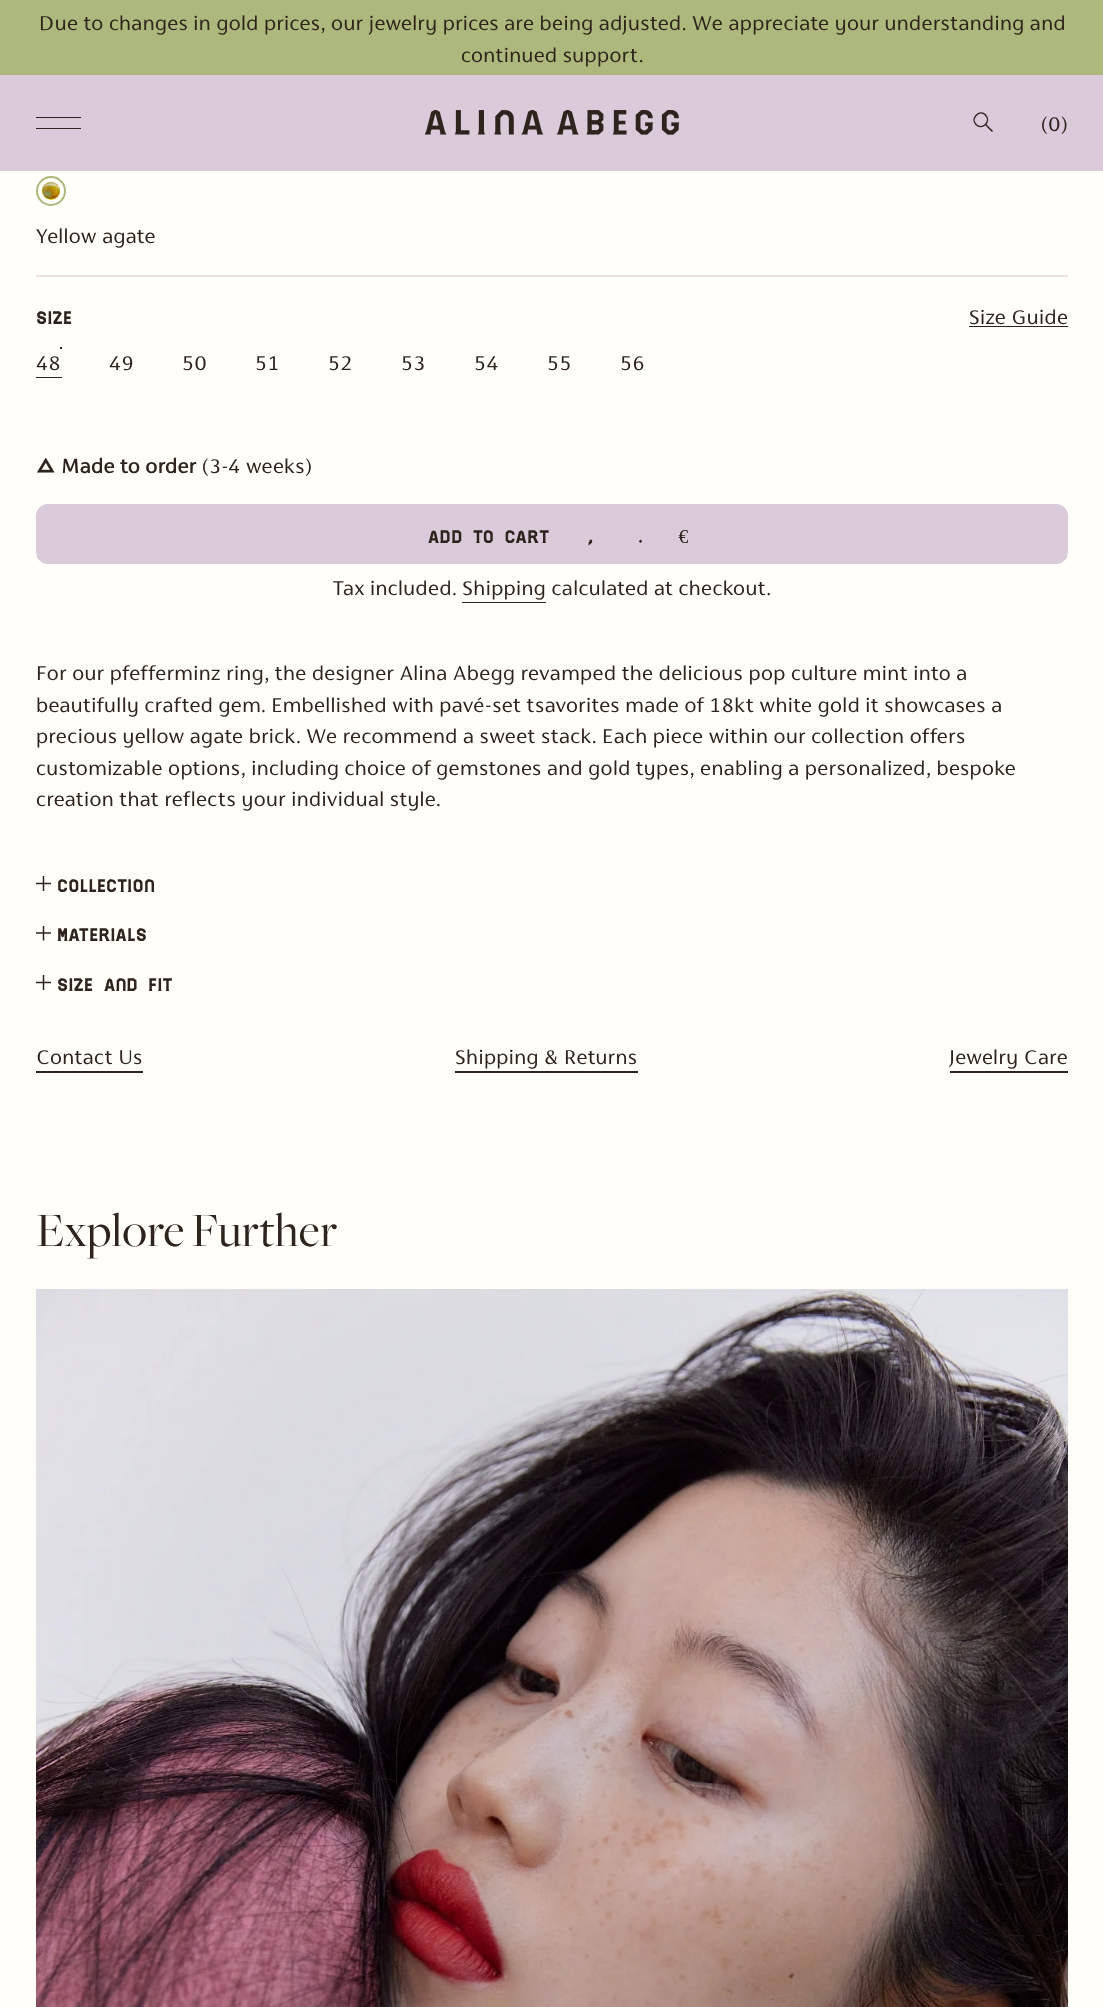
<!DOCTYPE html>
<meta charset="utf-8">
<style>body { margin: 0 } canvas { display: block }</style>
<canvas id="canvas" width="1103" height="2007"></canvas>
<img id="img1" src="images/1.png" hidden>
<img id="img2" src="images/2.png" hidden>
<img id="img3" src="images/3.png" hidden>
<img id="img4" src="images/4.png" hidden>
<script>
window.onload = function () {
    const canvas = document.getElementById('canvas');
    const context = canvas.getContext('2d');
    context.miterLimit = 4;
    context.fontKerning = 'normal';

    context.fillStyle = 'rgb(255, 254, 248)';
    context.fillRect(0, 0, 1103, 2007);
    context.fillStyle = 'rgb(173, 184, 124)';
    context.fillRect(0, 0, 1103, 75);
    context.fillStyle = 'rgb(219, 203, 218)';
    context.fillRect(0, 75, 1103, 96);
    context.fillStyle = 'rgb(46, 35, 29)';
    context.fillRect(36, 117, 45, 1);
    context.fillRect(36, 128, 45, 1);
    context.drawImage(document.getElementById('img1'), 425, 110, 255, 25);
    context.beginPath();
    context.moveTo(985, 124);
    context.lineTo(992.5, 131.5);
    context.moveTo(985.5, 115);
    context.bezierCurveTo(991.5, 121.5, 982.5, 130.5, 976, 124.5);
    context.bezierCurveTo(970, 118.5, 979.5, 109, 985.5, 115);
    context.closePath();
    context.strokeStyle = 'rgb(46, 35, 29)';
    context.lineWidth = 1.5;
    context.stroke();
    context.fillStyle = 'rgb(236, 215, 34)';
    context.beginPath();
    context.arc(51, 191, 9, 0, 2 * Math.PI);
    context.fill();
    context.drawImage(document.getElementById('img2'), 42, 181, 18, 19);
    context.beginPath();
    context.arc(51, 191, 14, 0, 2 * Math.PI);
    context.strokeStyle = 'rgb(173, 184, 124)';
    context.lineWidth = 2;
    context.stroke();
    context.fillStyle = 'rgb(229, 229, 229)';
    context.fillRect(36, 275, 1032, 2);
    context.fillStyle = 'rgb(46, 35, 29)';
    context.fillRect(969, 326, 99, 1);
    context.fillRect(36, 377, 26, 1);
    context.fillRect(60, 347, 2, 2);
    context.drawImage(document.getElementById('img3'), 37, 458, 18, 15);
    context.fillStyle = 'rgb(219, 203, 218)';
    context.beginPath();
    context.roundRect(37, 505, 1030, 58, 11);
    context.fill();
    context.strokeStyle = 'rgb(219, 203, 218)';
    context.stroke();
    context.fillStyle = 'rgb(46, 35, 29)';
    context.fillRect(462, 602, 84, 1);
    context.beginPath();
    context.moveTo(36, 883.5);
    context.lineTo(51, 883.5);
    context.moveTo(43.5, 876);
    context.lineTo(43.5, 891);
    context.strokeStyle = 'rgb(46, 35, 29)';
    context.lineWidth = 1.5;
    context.stroke();
    context.fillStyle = 'rgb(98, 90, 84)';
    context.fillRect(36, 932, 15, 2);
    context.save();
    context.beginPath();
    context.rect(36, 926, 15, 15);
    context.clip();
    context.beginPath();
    context.moveTo(43.5, 925.5);
    context.lineTo(43.5, 940.5);
    context.stroke();
    context.restore();
    context.beginPath();
    context.moveTo(36, 982.5);
    context.lineTo(51, 982.5);
    context.moveTo(43.5, 975);
    context.lineTo(43.5, 990);
    context.stroke();
    context.fillStyle = 'rgb(46, 35, 29)';
    context.fillRect(36, 1071, 107, 2);
    context.fillRect(455, 1071, 183, 2);
    context.fillRect(950, 1071, 118, 2);
    context.drawImage(document.getElementById('img4'), 36, 1289, 1032, 718);
    context.letterSpacing = '0.39px';
    context.font = '19.5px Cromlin';
    context.fillText('Due to changes in gold prices, our jewelry prices are being adjusted. We appreciate your understanding and', 39, 30);
    context.fillText('continued support.', 461, 62);
    context.fillText('(0)', 1041, 131);
    context.fillText('Yellow agate', 36, 243);
    context.font = '19.5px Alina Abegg';
    context.fillText('SIZE', 36, 324);
    context.font = '19.5px Cromlin';
    context.fillText('Size Guide', 969, 324);
    context.fillText('48', 36, 370);
    context.fillText('49', 109, 370);
    context.fillText('50', 182, 370);
    context.fillText('51', 255, 370);
    context.fillText('52', 328, 370);
    context.fillText('53', 401, 370);
    context.fillText('54', 474, 370);
    context.fillText('55', 547, 370);
    context.fillText('56', 620, 370);
    context.font = 'bold 19.5px Cromlin';
    context.fillText('Made to order', 61, 473);
    context.font = '19.5px Cromlin';
    context.fillText('(3-4 weeks)', 202, 473);
    context.wordSpacing = '4px';
    context.font = '19.5px Alina Abegg';
    context.fillText('ADD TO CART', 428, 543);
    context.wordSpacing = '-1px';
    context.fillText('6,070.00 €', 573, 543);
    context.wordSpacing = '0px';
    context.font = '19.5px Cromlin';
    context.fillText('Tax included. Shipping calculated at checkout.', 333, 595);
    context.fillText('For our pfefferminz ring, the designer Alina Abegg revamped the delicious pop culture mint into a', 36, 680);
    context.fillText('beautifully crafted gem. Embellished with pavé-set tsavorites made of 18kt white gold it showcases a', 36, 712);
    context.fillText('precious yellow agate brick. We recommend a sweet stack. Each piece within our collection offers', 36, 743);
    context.fillText('customizable options, including choice of gemstones and gold types, enabling a personalized, bespoke', 36, 775);
    context.fillText('creation that reflects your individual style.', 36, 806);
    context.font = '19.5px Alina Abegg';
    context.fillText('COLLECTION', 57, 892);
    context.fillText('MATERIALS', 57, 941);
    context.wordSpacing = '4px';
    context.fillText('SIZE AND FIT', 57, 991);
    context.wordSpacing = '0px';
    context.font = '19.5px Cromlin';
    context.fillText('Contact Us', 36, 1064);
    context.fillText('Shipping & Returns', 455, 1064);
    context.fillText('Jewelry Care', 949, 1064);
    context.font = '49.75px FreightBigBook';
    context.fillText('Explore Further', 36, 1246);
};
</script>
